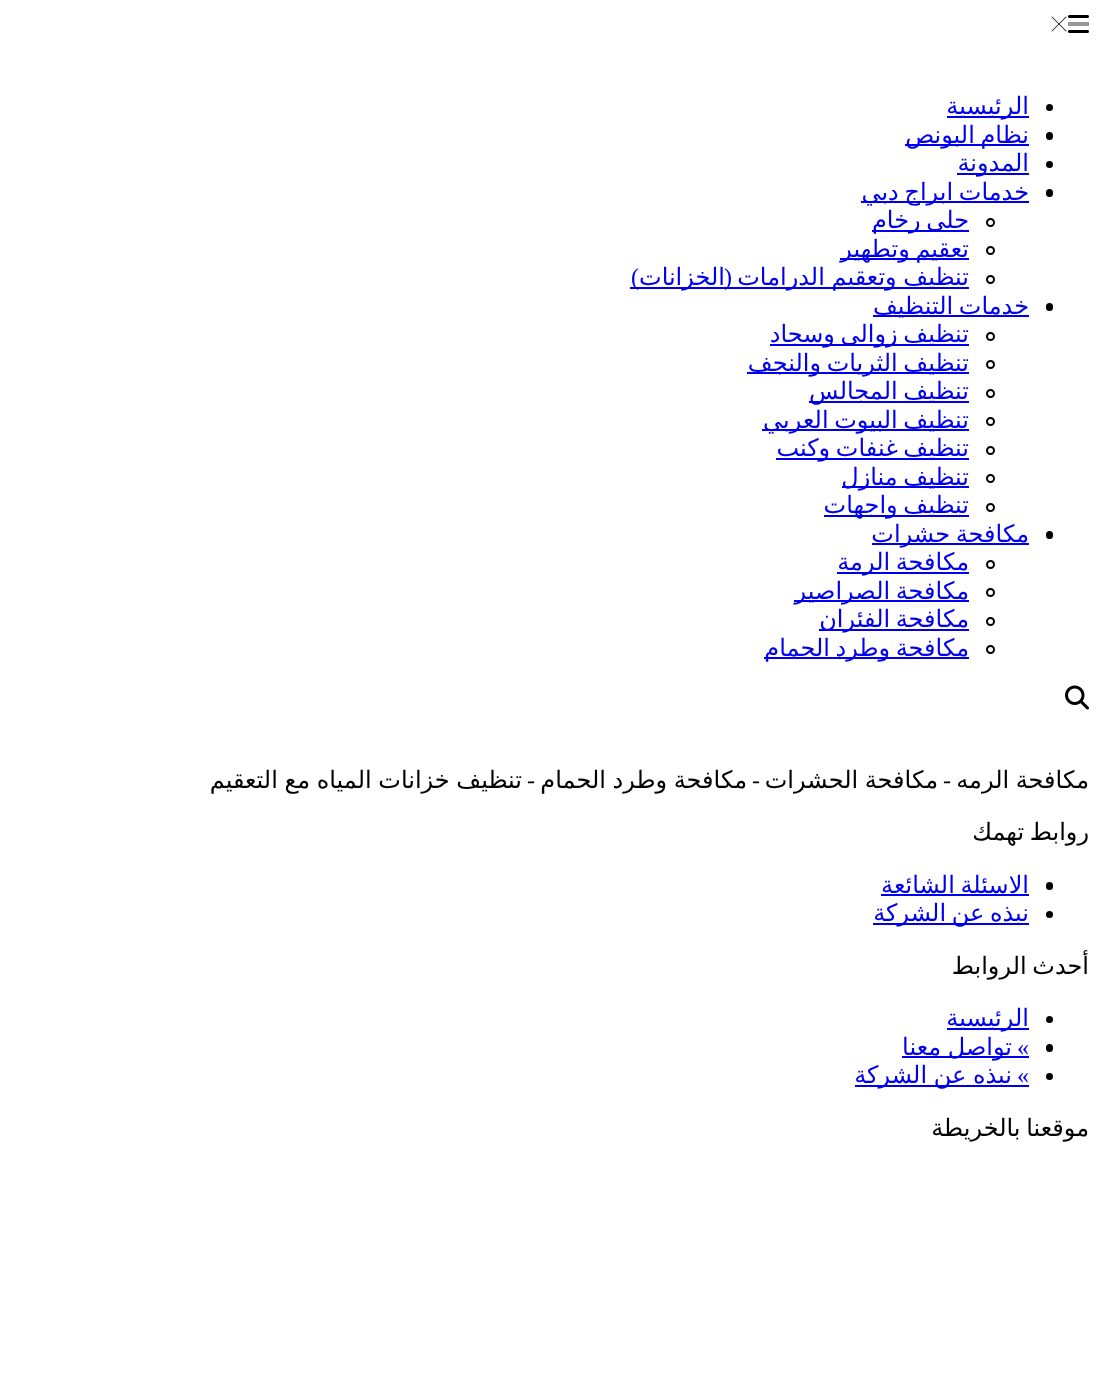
<!DOCTYPE html>
<meta charset="utf-8">
<style>body { margin: 0 } canvas { display: block }</style>
<canvas id="canvas" width="1101" height="1399"></canvas>
<img id="img1" src="images/1.png" hidden>
<img id="img2" src="images/2.png" hidden>
<img id="img3" src="images/3.png" hidden>
<script>
window.onload = function () {
    const canvas = document.getElementById('canvas');
    const context = canvas.getContext('2d');
    context.miterLimit = 4;
    context.fontKerning = 'normal';

    context.fillStyle = 'rgb(255, 255, 255)';
    context.fillRect(0, 0, 1101, 1399);
    context.drawImage(document.getElementById('img1'), 1068, 15, 21, 18);
    context.fillStyle = 'rgb(153, 153, 153)';
    context.fillRect(1068, 22, 21, 4);
    context.drawImage(document.getElementById('img2'), 1051, 16, 16, 16);
    context.fillStyle = 'rgb(0, 0, 0)';
    context.beginPath();
    context.arc(1049.5, 107.5, 3.5, 0, 2 * Math.PI);
    context.fill();
    context.fillStyle = 'rgb(0, 0, 238)';
    context.fillRect(947, 116, 82, 2);
    context.fillStyle = 'rgb(0, 0, 0)';
    context.beginPath();
    context.roundRect(1046, 132, 7, 8, 3.5);
    context.fill();
    context.fillStyle = 'rgb(0, 0, 238)';
    context.fillRect(905, 144, 124, 2);
    context.fillStyle = 'rgb(0, 0, 0)';
    context.beginPath();
    context.arc(1049.5, 164.5, 3.5, 0, 2 * Math.PI);
    context.fill();
    context.fillStyle = 'rgb(0, 0, 238)';
    context.fillRect(957, 173, 72, 2);
    context.fillStyle = 'rgb(0, 0, 0)';
    context.beginPath();
    context.roundRect(1046, 189, 7, 8, 3.5);
    context.fill();
    context.fillStyle = 'rgb(0, 0, 238)';
    context.fillRect(861, 201, 168, 2);
    context.beginPath();
    context.arc(990.5, 222.5, 3.5, 0, 2 * Math.PI);
    context.strokeStyle = 'rgb(0, 0, 0)';
    context.lineWidth = 2;
    context.stroke();
    context.fillRect(872, 230, 97, 2);
    context.beginPath();
    context.arc(990.5, 250.5, 3.5, 0, 2 * Math.PI);
    context.stroke();
    context.fillRect(840, 258, 129, 2);
    context.beginPath();
    context.arc(990.5, 279.5, 3.5, 0, 2 * Math.PI);
    context.stroke();
    context.fillRect(630, 287, 339, 2);
    context.fillStyle = 'rgb(0, 0, 0)';
    context.beginPath();
    context.roundRect(1046, 303, 7, 8, 3.5);
    context.fill();
    context.fillStyle = 'rgb(0, 0, 238)';
    context.fillRect(873, 315, 156, 2);
    context.beginPath();
    context.arc(990.5, 336.5, 3.5, 0, 2 * Math.PI);
    context.stroke();
    context.fillRect(770, 344, 199, 2);
    context.beginPath();
    context.arc(990.5, 364.5, 3.5, 0, 2 * Math.PI);
    context.stroke();
    context.fillRect(747, 372, 222, 2);
    context.beginPath();
    context.arc(990.5, 393.5, 3.5, 0, 2 * Math.PI);
    context.stroke();
    context.fillRect(809, 401, 160, 2);
    context.beginPath();
    context.arc(990.5, 421.5, 3.5, 0, 2 * Math.PI);
    context.stroke();
    context.fillRect(762, 429, 207, 2);
    context.beginPath();
    context.arc(990.5, 450.5, 3.5, 0, 2 * Math.PI);
    context.stroke();
    context.fillRect(776, 458, 193, 2);
    context.beginPath();
    context.arc(990.5, 478.5, 3.5, 0, 2 * Math.PI);
    context.stroke();
    context.fillRect(842, 486, 127, 2);
    context.beginPath();
    context.arc(990.5, 507.5, 3.5, 0, 2 * Math.PI);
    context.stroke();
    context.fillRect(824, 515, 145, 2);
    context.fillStyle = 'rgb(0, 0, 0)';
    context.beginPath();
    context.roundRect(1046, 531, 7, 8, 3.5);
    context.fill();
    context.fillStyle = 'rgb(0, 0, 238)';
    context.fillRect(872, 543, 157, 2);
    context.beginPath();
    context.arc(990.5, 564.5, 3.5, 0, 2 * Math.PI);
    context.stroke();
    context.fillRect(837, 572, 132, 2);
    context.beginPath();
    context.arc(990.5, 592.5, 3.5, 0, 2 * Math.PI);
    context.stroke();
    context.fillRect(794, 600, 175, 2);
    context.beginPath();
    context.arc(990.5, 621.5, 3.5, 0, 2 * Math.PI);
    context.stroke();
    context.fillRect(819, 629, 150, 2);
    context.beginPath();
    context.arc(990.5, 649.5, 3.5, 0, 2 * Math.PI);
    context.stroke();
    context.fillRect(764, 657, 205, 2);
    context.drawImage(document.getElementById('img3'), 1065, 685, 24, 25);
    context.fillStyle = 'rgb(0, 0, 0)';
    context.beginPath();
    context.roundRect(1046, 882, 7, 8, 3.5);
    context.fill();
    context.fillStyle = 'rgb(0, 0, 238)';
    context.fillRect(881, 894, 148, 2);
    context.fillStyle = 'rgb(0, 0, 0)';
    context.beginPath();
    context.arc(1049.5, 914.5, 3.5, 0, 2 * Math.PI);
    context.fill();
    context.fillStyle = 'rgb(0, 0, 238)';
    context.fillRect(873, 923, 156, 2);
    context.fillStyle = 'rgb(0, 0, 0)';
    context.beginPath();
    context.arc(1049.5, 1019.5, 3.5, 0, 2 * Math.PI);
    context.fill();
    context.fillStyle = 'rgb(0, 0, 238)';
    context.fillRect(947, 1028, 82, 2);
    context.fillStyle = 'rgb(0, 0, 0)';
    context.beginPath();
    context.roundRect(1046, 1044, 7, 8, 3.5);
    context.fill();
    context.fillStyle = 'rgb(0, 0, 238)';
    context.fillRect(902, 1056, 127, 2);
    context.fillStyle = 'rgb(0, 0, 0)';
    context.beginPath();
    context.arc(1049.5, 1076.5, 3.5, 0, 2 * Math.PI);
    context.fill();
    context.fillStyle = 'rgb(0, 0, 238)';
    context.fillRect(855, 1085, 174, 2);
    context.direction = 'rtl';
    context.font = '24px DejaVu Sans';
    context.fillText('الرئيسية', 1029, 114);
    context.wordSpacing = '-2px';
    context.fillText('نظام البونص', 1029, 143);
    context.wordSpacing = '0px';
    context.fillText('المدونة', 1029, 171);
    context.wordSpacing = '-2px';
    context.fillText('خدمات ابراج دبي', 1029, 200);
    context.fillText('جلى رخام', 969, 228);
    context.fillText('تعقيم وتطهير', 969, 257);
    context.wordSpacing = '-1px';
    context.fillText('تنظيف وتعقيم الدرامات', 969, 285);
    context.wordSpacing = '0px';
    context.font = '24px Liberation Serif';
    context.fillText('(', 732, 285);
    context.font = '24px DejaVu Sans';
    context.fillText('الخزانات', 725, 285);
    context.font = '24px Liberation Serif';
    context.fillText(')', 639, 285);
    context.wordSpacing = '-2px';
    context.font = '24px DejaVu Sans';
    context.fillText('خدمات التنظيف', 1029, 314);
    context.fillText('تنظيف زوالى وسجاد', 969, 342);
    context.fillText('تنظيف الثريات والنجف', 969, 371);
    context.fillText('تنظيف المجالس', 969, 399);
    context.fillText('تنظيف البيوت العربي', 969, 428);
    context.fillText('تنظيف غنفات وكنب', 969, 456);
    context.fillText('تنظيف منازل', 969, 485);
    context.fillText('تنظيف واجهات', 969, 513);
    context.fillText('مكافحة حشرات', 1029, 542);
    context.fillText('مكافحة الرمة', 969, 570);
    context.fillText('مكافحة الصراصير', 969, 599);
    context.fillText('مكافحة الفئران', 969, 627);
    context.fillText('مكافحة وطرد الحمام', 969, 656);
    context.wordSpacing = '-1px';
    context.fillStyle = 'rgb(0, 0, 0)';
    context.fillText('مكافحة الرمه', 1089, 788);
    context.wordSpacing = '0px';
    context.font = '24px Liberation Serif';
    context.fillText('-', 951, 788);
    context.wordSpacing = '-1px';
    context.font = '24px DejaVu Sans';
    context.fillText('مكافحة الحشرات', 938, 788);
    context.wordSpacing = '0px';
    context.font = '24px Liberation Serif';
    context.fillText('-', 760, 788);
    context.wordSpacing = '-1px';
    context.font = '24px DejaVu Sans';
    context.fillText('مكافحة وطرد الحمام', 747, 788);
    context.wordSpacing = '0px';
    context.font = '24px Liberation Serif';
    context.fillText('-', 535, 788);
    context.wordSpacing = '-1px';
    context.font = '24px DejaVu Sans';
    context.fillText('تنظيف خزانات المياه مع التعقيم', 522, 788);
    context.wordSpacing = '-2px';
    context.fillText('روابط تهمك', 1089, 840);
    context.fillStyle = 'rgb(0, 0, 238)';
    context.fillText('الاسئلة الشائعة', 1029, 893);
    context.fillText('نبذه عن الشركة', 1029, 921);
    context.fillStyle = 'rgb(0, 0, 0)';
    context.fillText('أحدث الروابط', 1089, 974);
    context.wordSpacing = '0px';
    context.fillStyle = 'rgb(0, 0, 238)';
    context.fillText('الرئيسية', 1029, 1026);
    context.font = '24px Liberation Serif';
    context.fillText('»', 1029, 1055);
    context.wordSpacing = '-1px';
    context.font = '24px DejaVu Sans';
    context.fillText('تواصل معنا', 1012, 1055);
    context.wordSpacing = '0px';
    context.font = '24px Liberation Serif';
    context.fillText('»', 1029, 1083);
    context.wordSpacing = '-1px';
    context.font = '24px DejaVu Sans';
    context.fillText('نبذه عن الشركة', 1012, 1083);
    context.wordSpacing = '-2px';
    context.fillStyle = 'rgb(0, 0, 0)';
    context.fillText('موقعنا بالخريطة', 1089, 1136);
};
</script>
